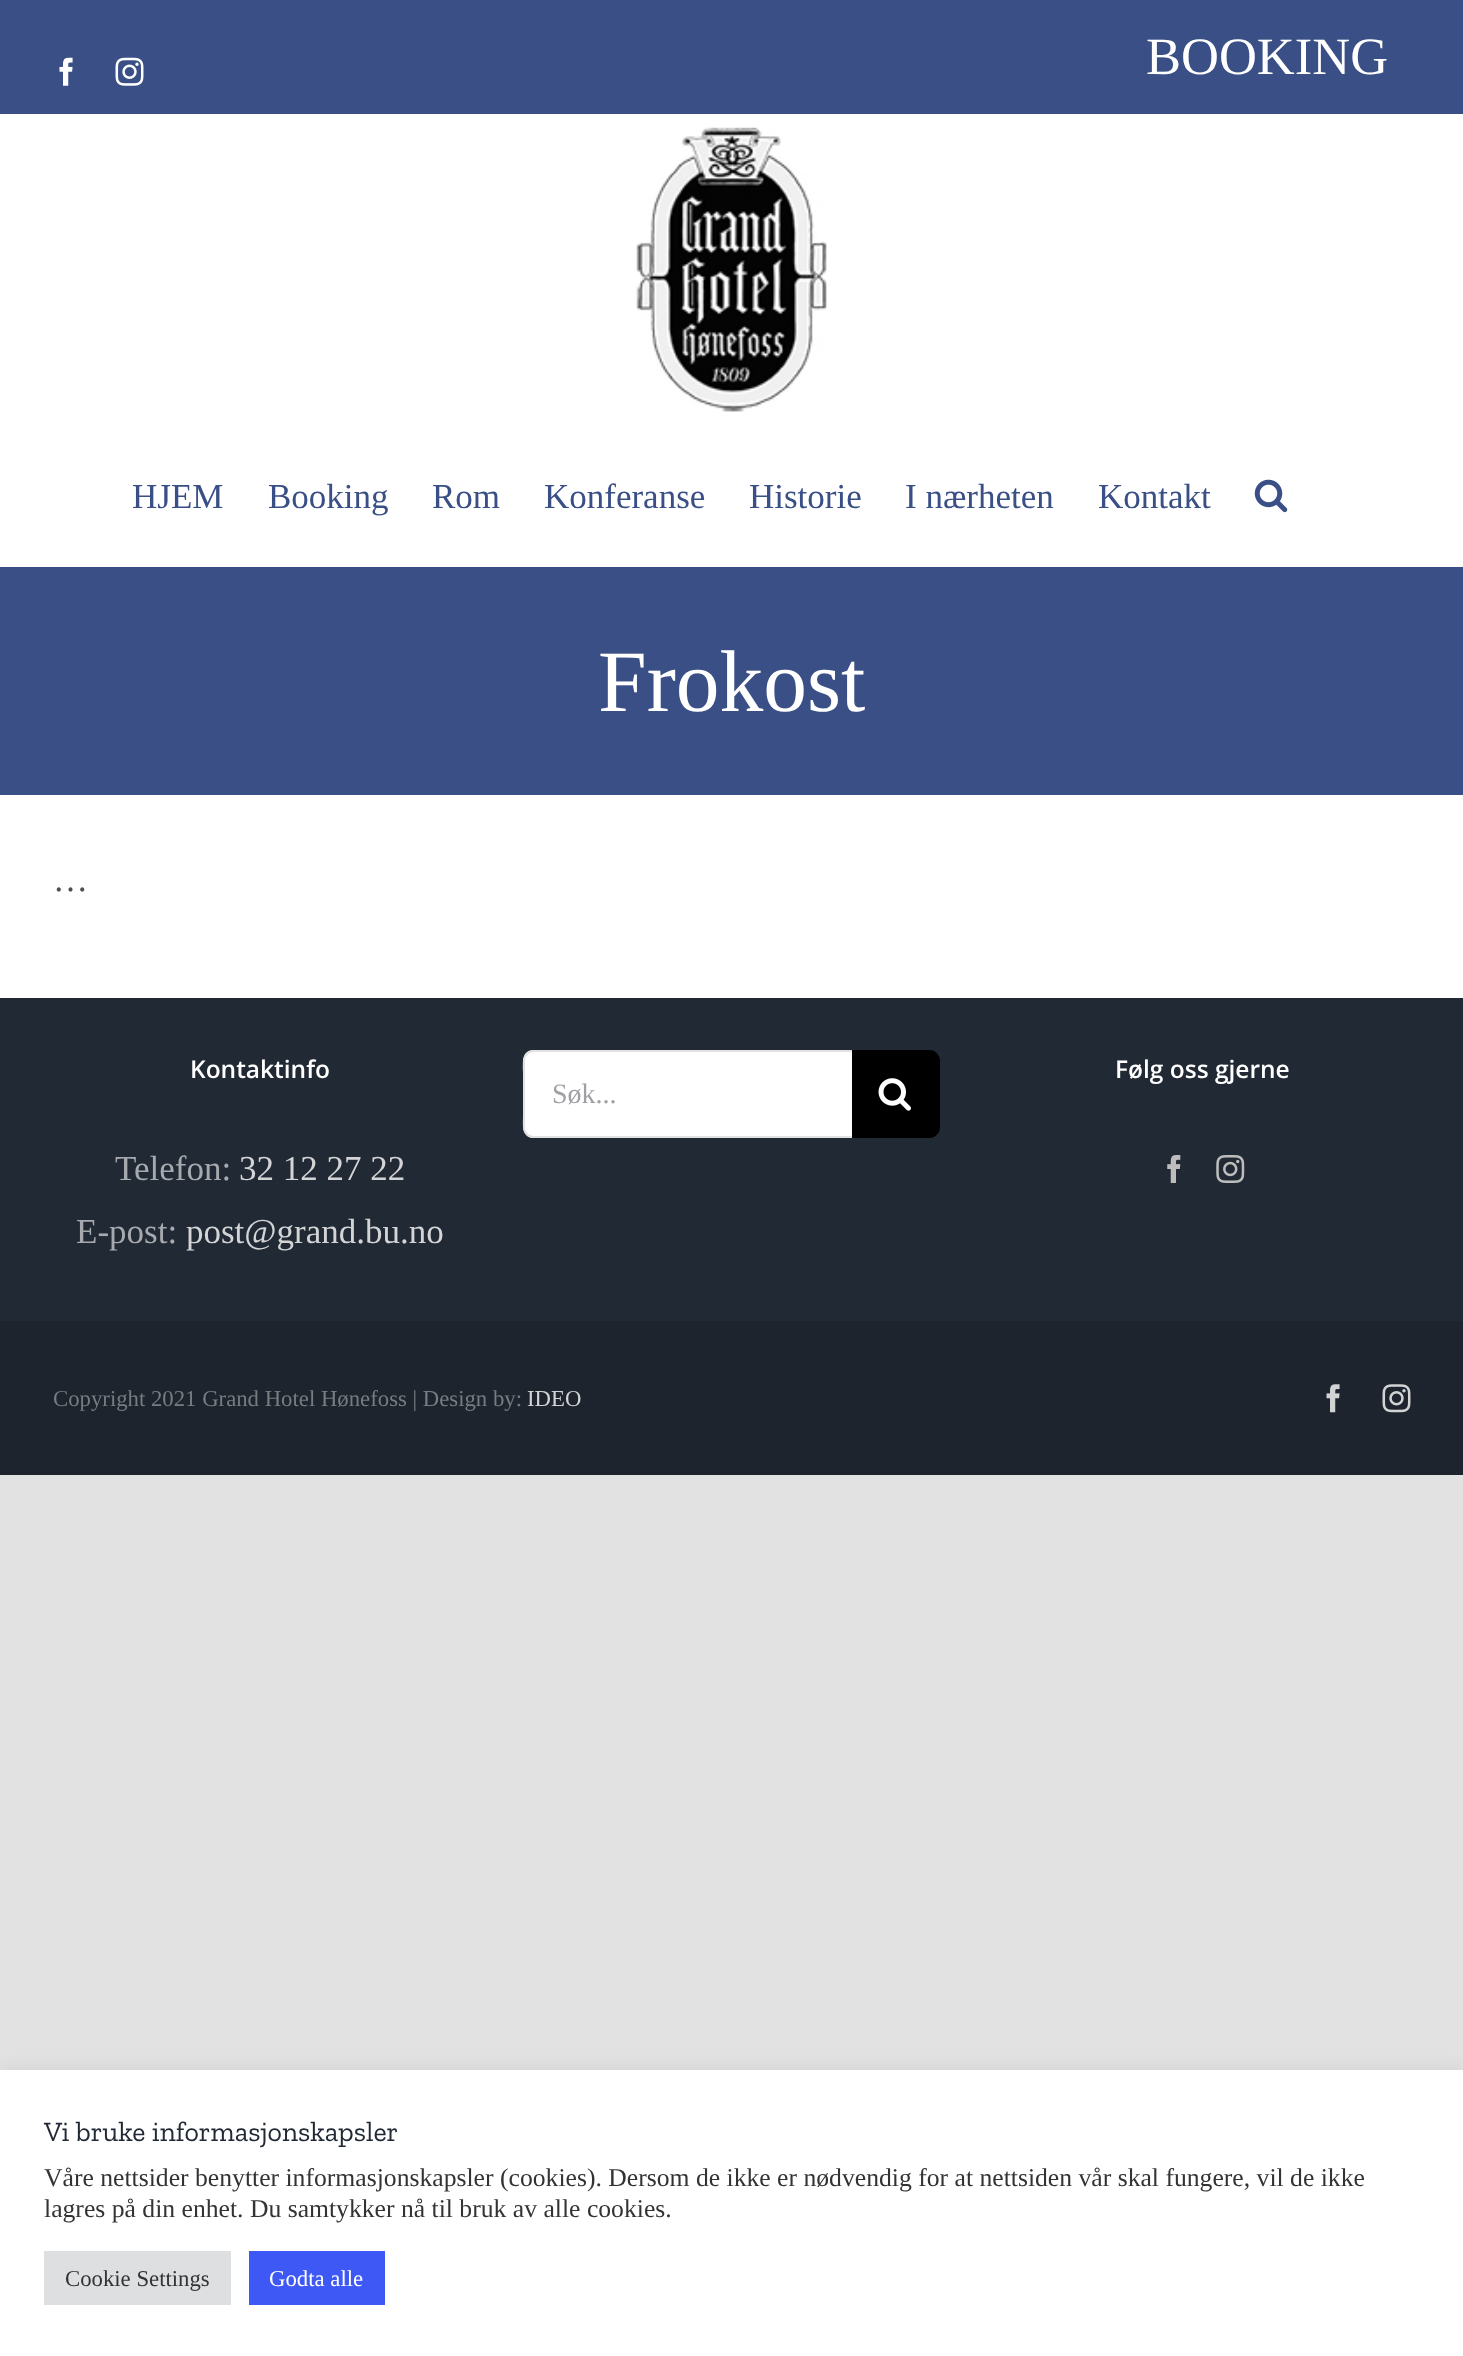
<!DOCTYPE html>
<meta charset="utf-8">
<style>body { margin: 0 } canvas { display: block }</style>
<canvas id="canvas" width="1463" height="2356"></canvas>
<img id="img1" src="images/1.png" hidden>
<img id="img2" src="images/2.png" hidden>
<img id="img3" src="images/3.png" hidden>
<img id="img4" src="images/4.png" hidden>
<img id="img5" src="images/5.png" hidden>
<img id="img6" src="images/6.png" hidden>
<img id="img7" src="images/7.png" hidden>
<img id="img8" src="images/8.png" hidden>
<img id="img9" src="images/9.png" hidden>
<script>
window.onload = function () {
    const canvas = document.getElementById('canvas');
    const context = canvas.getContext('2d');
    context.miterLimit = 4;
    context.fontKerning = 'normal';

    context.fillStyle = 'rgb(226, 226, 226)';
    context.fillRect(0, 0, 1463, 2356);
    context.fillStyle = 'rgb(255, 255, 255)';
    context.fillRect(0, 114, 1463, 884);
    context.fillStyle = 'rgb(57, 79, 133)';
    context.fillRect(0, 0, 1463, 114);
    context.drawImage(document.getElementById('img1'), 59, 57, 14, 29);
    context.drawImage(document.getElementById('img2'), 115, 57, 29, 29);
    context.drawImage(document.getElementById('img3'), 636, 127, 191, 285);
    context.drawImage(document.getElementById('img4'), 1254, 479, 34, 34);
    context.fillRect(0, 567, 1463, 228);
    context.fillStyle = 'rgb(33, 41, 52)';
    context.fillRect(0, 998, 1463, 323);
    context.drawImage(document.getElementById('img5'), 1167, 1155, 14, 28);
    context.drawImage(document.getElementById('img6'), 1216, 1155, 29, 28);
    context.fillStyle = 'rgb(255, 255, 255)';
    context.beginPath();
    context.roundRect(523, 1050, 329, 88, [11, 0, 0, 11]);
    context.fill();
    context.fillStyle = 'rgb(226, 226, 226)';
    context.beginPath();
    context.moveTo(534, 1050);
    context.bezierCurveTo(521, 1050, 523, 1063, 523, 1072);
    context.lineTo(523, 1116);
    context.bezierCurveTo(523, 1124, 521, 1138, 534, 1138);
    context.lineTo(852, 1138);
    context.lineTo(852, 1136);
    context.lineTo(534, 1136);
    context.bezierCurveTo(529, 1136, 525, 1132, 525, 1127);
    context.lineTo(525, 1060);
    context.bezierCurveTo(525, 1056, 529, 1052, 534, 1052);
    context.lineTo(852, 1052);
    context.lineTo(852, 1050);
    context.closePath();
    context.fill();
    context.fillStyle = 'rgb(0, 0, 0)';
    context.beginPath();
    context.roundRect(852, 1050, 88, 88, [0, 11, 11, 0]);
    context.fill();
    context.drawImage(document.getElementById('img7'), 878, 1078, 33, 33);
    context.fillStyle = 'rgb(29, 36, 45)';
    context.fillRect(0, 1321, 1463, 154);
    context.drawImage(document.getElementById('img8'), 1326, 1384, 14, 29);
    context.drawImage(document.getElementById('img9'), 1382, 1384, 29, 29);
    context.fillStyle = 'rgba(172, 171, 171, 0.3)';
    context.filter = 'blur(9px)';
    context.beginPath();
    context.rect(0, 2069, 1463, 287);
    context.fill();
    context.filter = 'none';
    context.fillStyle = 'rgb(255, 255, 255)';
    context.fillRect(0, 2070, 1463, 286);
    context.fillStyle = 'rgb(222, 223, 224)';
    context.fillRect(44, 2251, 187, 54);
    context.fillStyle = 'rgb(61, 88, 244)';
    context.fillRect(249, 2251, 136, 54);
    context.font = '52.5px Liberation Serif';
    context.fillStyle = 'rgb(255, 255, 255)';
    context.fillText('BOOKING', 1146, 74);
    context.font = '35px Liberation Serif';
    context.fillStyle = 'rgb(57, 79, 133)';
    context.fillText('HJEM', 132, 508);
    context.fillText('Booking', 268, 508);
    context.fillText('Rom', 432, 508);
    context.fillText('Konferanse', 544, 508);
    context.fillText('Historie', 749, 508);
    context.fillText('I nærheten', 905, 508);
    context.fillText('Kontakt', 1098, 508);
    context.font = '87.5px Liberation Serif';
    context.fillStyle = 'rgb(255, 255, 255)';
    context.fillText('Frokost', 598, 711);
    context.font = '35px Liberation Serif';
    context.fillStyle = 'rgb(74, 78, 87)';
    context.fillText('…', 53, 891);
    context.font = '600 24.5px Open Sans';
    context.fillStyle = 'rgb(255, 255, 255)';
    context.fillText('Kontaktinfo', 190, 1078);
    context.font = '35px Liberation Serif';
    context.fillStyle = 'rgb(166, 169, 174)';
    context.fillText('Telefon:', 115, 1180);
    context.fillStyle = 'rgb(211, 212, 214)';
    context.fillText('32 12 27 22', 239, 1180);
    context.fillStyle = 'rgb(166, 169, 174)';
    context.fillText('E-post:', 76, 1243);
    context.fillStyle = 'rgb(211, 212, 214)';
    context.fillText('post@grand.bu.no', 186, 1243);
    context.font = '600 24.5px Open Sans';
    context.fillStyle = 'rgb(255, 255, 255)';
    context.fillText('Følg oss gjerne', 1115, 1078);
    context.font = '28px Liberation Serif';
    context.fillStyle = 'rgb(158, 160, 164)';
    context.fillText('Søk...', 552, 1103);
    context.font = '22.75px Liberation Serif';
    context.fillStyle = 'rgb(119, 124, 129)';
    context.fillText('Copyright 2021 Grand Hotel Hønefoss | Design by:', 53, 1406);
    context.fillStyle = 'rgb(211, 212, 214)';
    context.fillText('IDEO', 527, 1406);
    context.font = '28px Zilla Slab';
    context.fillStyle = 'rgb(33, 41, 52)';
    context.fillText('Vi bruke informasjonskapsler', 44, 2141);
    context.font = '25.67px Liberation Serif';
    context.fillStyle = 'rgb(51, 51, 51)';
    context.fillText('Våre nettsider benytter informasjonskapsler (cookies). Dersom de ikke er nødvendig for at nettsiden vår skal fungere, vil de ikke', 44, 2186);
    context.fillText('lagres på din enhet. Du samtykker nå til bruk av alle cookies.', 44, 2217);
    context.font = '22.75px Liberation Serif';
    context.fillText('Cookie Settings', 65, 2286);
    context.fillStyle = 'rgb(255, 255, 255)';
    context.fillText('Godta alle', 269, 2286);
};
</script>
